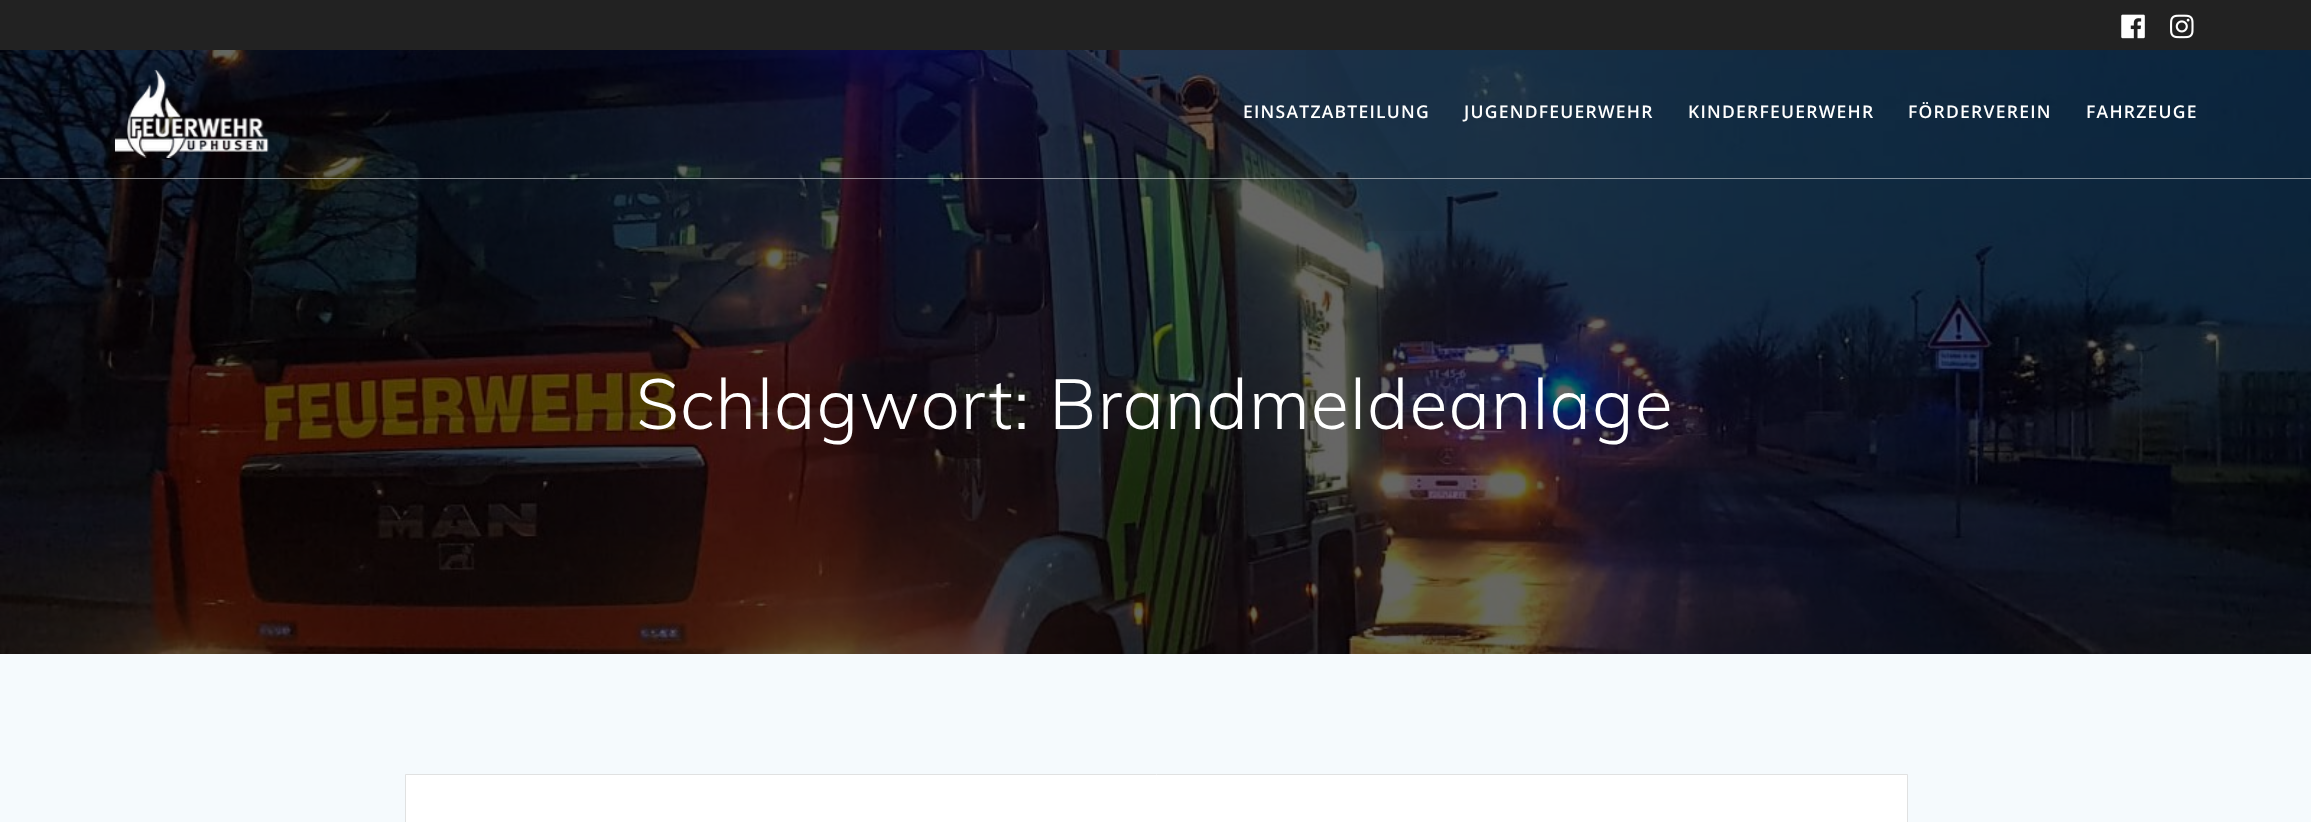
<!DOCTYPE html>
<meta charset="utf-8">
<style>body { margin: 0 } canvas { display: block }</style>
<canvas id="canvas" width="2311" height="822"></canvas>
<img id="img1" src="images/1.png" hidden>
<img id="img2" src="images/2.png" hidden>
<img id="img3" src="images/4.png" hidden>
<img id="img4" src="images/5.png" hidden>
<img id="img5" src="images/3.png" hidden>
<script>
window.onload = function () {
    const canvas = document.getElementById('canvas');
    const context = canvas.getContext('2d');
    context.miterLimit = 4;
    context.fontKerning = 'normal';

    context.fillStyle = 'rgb(255, 255, 255)';
    context.fillRect(0, 0, 2311, 822);
    context.fillStyle = 'rgb(34, 34, 34)';
    context.fillRect(0, 0, 2311, 50);
    context.drawImage(document.getElementById('img1'), 2121, 14, 24, 25);
    context.drawImage(document.getElementById('img2'), 2170, 14, 24, 25);
    context.drawImage(document.getElementById('img3'), 0, 50, 2311, 604);
    context.drawImage(document.getElementById('img4'), 1306, 50, 141, 181);
    context.fillStyle = 'rgba(255, 255, 255, 0.5)';
    context.fillRect(0, 178, 2311, 1);
    context.drawImage(document.getElementById('img5'), 115, 70, 154, 88);
    context.fillStyle = 'rgb(245, 250, 253)';
    context.fillRect(0, 654, 2311, 168);
    context.fillStyle = 'rgb(255, 255, 255)';
    context.beginPath();
    context.rect(405.5, 774.5, 1502, 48);
    context.fill();
    context.strokeStyle = 'rgb(224, 225, 225)';
    context.stroke();
    context.letterSpacing = '1.25px';
    context.font = '600 17.5px Open Sans';
    context.fillText('EINSATZABTEILUNG', 1243, 118);
    context.fillText('JUGENDFEUERWEHR', 1464, 118);
    context.fillText('KINDERFEUERWEHR', 1688, 118);
    context.fillText('FÖRDERVEREIN', 1908, 118);
    context.fillText('FAHRZEUGE', 2086, 118);
    context.letterSpacing = '1.1px';
    context.font = '300 70px Muli';
    context.fillText('Schlagwort: Brandmeldeanlage', 636, 429);
};
</script>
